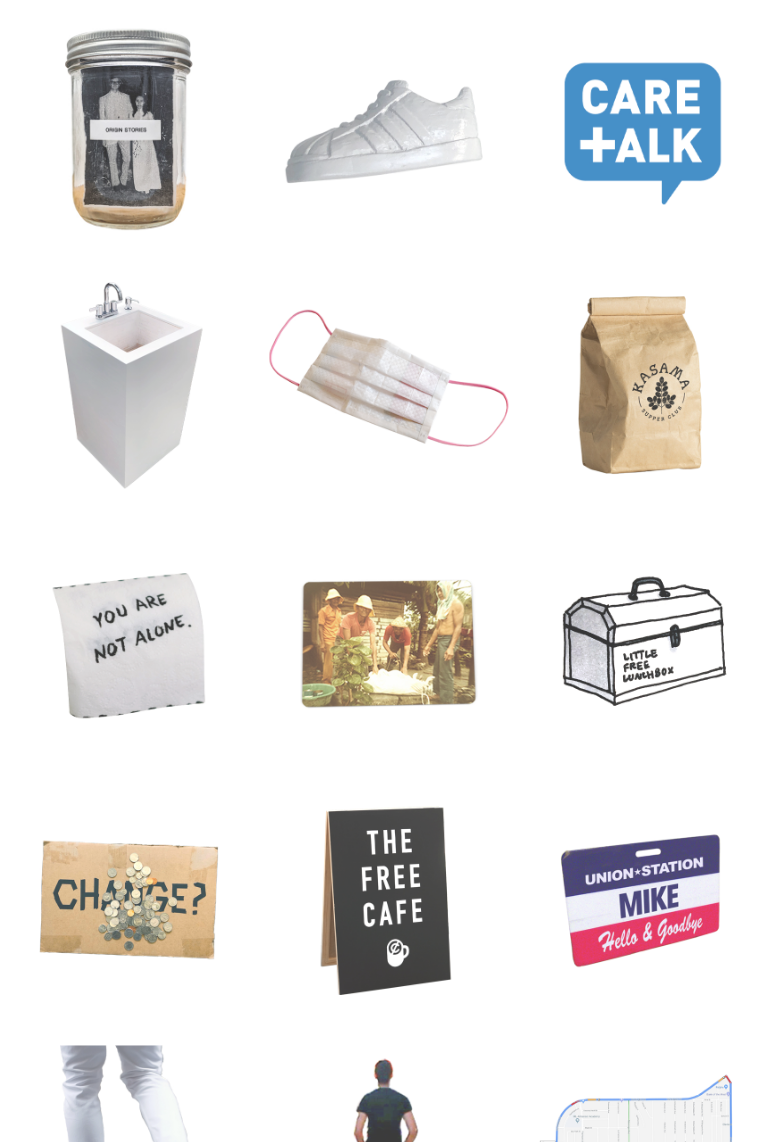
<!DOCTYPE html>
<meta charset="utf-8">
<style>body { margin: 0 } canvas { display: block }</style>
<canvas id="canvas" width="773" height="1142"></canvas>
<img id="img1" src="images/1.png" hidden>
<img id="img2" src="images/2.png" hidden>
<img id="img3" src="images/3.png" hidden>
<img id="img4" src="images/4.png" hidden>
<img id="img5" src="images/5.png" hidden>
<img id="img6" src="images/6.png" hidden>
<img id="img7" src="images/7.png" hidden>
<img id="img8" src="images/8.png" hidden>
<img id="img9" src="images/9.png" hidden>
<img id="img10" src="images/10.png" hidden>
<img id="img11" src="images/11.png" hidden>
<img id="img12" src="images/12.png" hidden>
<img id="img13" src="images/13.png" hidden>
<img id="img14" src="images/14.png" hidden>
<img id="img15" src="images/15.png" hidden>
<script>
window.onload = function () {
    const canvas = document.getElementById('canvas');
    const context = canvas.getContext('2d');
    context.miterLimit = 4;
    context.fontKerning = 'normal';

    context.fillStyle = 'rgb(255, 255, 255)';
    context.fillRect(0, 0, 773, 1142);
    context.drawImage(document.getElementById('img1'), 65, 28, 128, 203);
    context.drawImage(document.getElementById('img2'), 284, 79, 199, 105);
    context.drawImage(document.getElementById('img3'), 564, 62, 158, 143);
    context.drawImage(document.getElementById('img4'), 60, 282, 143, 207);
    context.drawImage(document.getElementById('img5'), 269, 309, 240, 138);
    context.drawImage(document.getElementById('img6'), 578, 296, 124, 179);
    context.drawImage(document.getElementById('img7'), 52, 573, 154, 146);
    context.drawImage(document.getElementById('img8'), 300, 579, 178, 130);
    context.drawImage(document.getElementById('img9'), 562, 576, 165, 130);
    context.drawImage(document.getElementById('img10'), 39, 840, 180, 120);
    context.drawImage(document.getElementById('img11'), 320, 806, 132, 189);
    context.drawImage(document.getElementById('img12'), 560, 834, 161, 134);
    context.drawImage(document.getElementById('img13'), 60, 1045, 129, 97);
    context.drawImage(document.getElementById('img14'), 353, 1058, 66, 84);
    context.drawImage(document.getElementById('img15'), 539, 1074, 194, 68);
};
</script>
